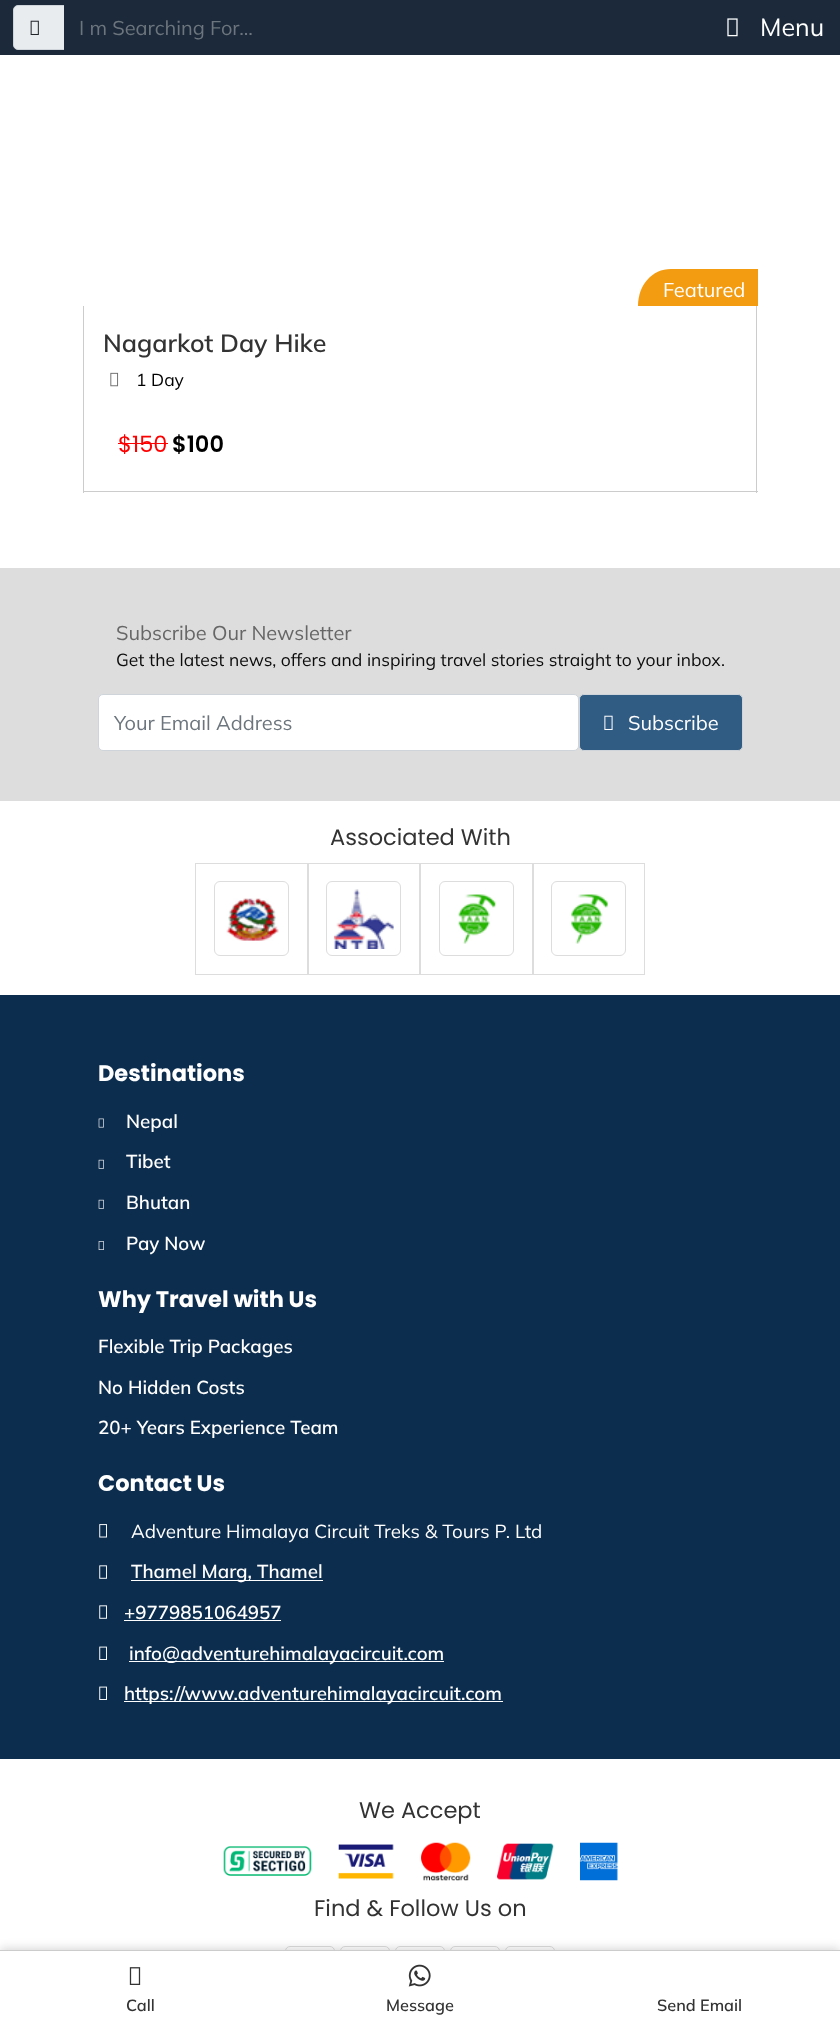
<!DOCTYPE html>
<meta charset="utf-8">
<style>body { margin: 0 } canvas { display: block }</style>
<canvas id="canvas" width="840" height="2029"></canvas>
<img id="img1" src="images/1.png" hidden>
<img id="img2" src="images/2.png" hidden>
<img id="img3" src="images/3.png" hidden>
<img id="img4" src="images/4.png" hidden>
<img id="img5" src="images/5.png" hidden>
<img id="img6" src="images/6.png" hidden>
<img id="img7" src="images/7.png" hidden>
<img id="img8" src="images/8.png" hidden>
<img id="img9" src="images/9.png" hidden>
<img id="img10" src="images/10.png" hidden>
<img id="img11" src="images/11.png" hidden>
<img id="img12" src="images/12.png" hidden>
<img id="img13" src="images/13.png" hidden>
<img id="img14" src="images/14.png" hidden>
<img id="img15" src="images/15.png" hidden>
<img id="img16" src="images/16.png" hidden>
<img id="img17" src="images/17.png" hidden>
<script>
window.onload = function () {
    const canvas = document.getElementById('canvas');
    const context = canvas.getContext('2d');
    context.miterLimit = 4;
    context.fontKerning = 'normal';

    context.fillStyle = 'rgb(255, 255, 255)';
    context.fillRect(0, 0, 840, 2029);
    context.fillStyle = 'rgb(27, 41, 58)';
    context.fillRect(0, 0, 840, 55);
    context.fillStyle = 'rgb(233, 236, 239)';
    context.beginPath();
    context.roundRect(13.5, 5.5, 51, 44, [4.5, 0, 0, 4.5]);
    context.fill();
    context.strokeStyle = 'rgb(206, 212, 218)';
    context.stroke();
    context.drawImage(document.getElementById('img1'), 30, 20, 9, 15);
    context.fillStyle = 'rgb(27, 41, 58)';
    context.fillRect(64, 5, 1, 45);
    context.drawImage(document.getElementById('img2'), 727, 18, 11, 19);
    context.save();
    context.beginPath();
    context.rect(83, 19, 675, 287);
    context.clip();
    context.fillStyle = 'rgb(243, 156, 18)';
    context.beginPath();
    context.moveTo(671, 269);
    context.lineTo(770, 269);
    context.lineTo(770, 379);
    context.bezierCurveTo(770, 400, 755, 416, 737, 416);
    context.lineTo(638, 416);
    context.lineTo(638, 306);
    context.bezierCurveTo(638, 285, 652, 269, 671, 269);
    context.closePath();
    context.fill();
    context.restore();
    context.fillStyle = 'rgb(204, 204, 204)';
    context.fillRect(756, 306, 1, 187);
    context.fillRect(83, 491, 675, 1);
    context.fillRect(83, 306, 1, 187);
    context.drawImage(document.getElementById('img3'), 110, 372, 9, 15);
    context.fillStyle = 'rgb(255, 0, 0)';
    context.fillRect(118, 443, 50, 1);
    context.fillStyle = 'rgb(221, 221, 221)';
    context.fillRect(0, 568, 840, 233);
    context.fillStyle = 'rgb(255, 255, 255)';
    context.beginPath();
    context.roundRect(98.5, 694.5, 480, 56, 4.5);
    context.fill();
    context.stroke();
    context.fillStyle = 'rgb(48, 91, 131)';
    context.beginPath();
    context.roundRect(579.5, 694.5, 163, 56, 4.5);
    context.fill();
    context.stroke();
    context.drawImage(document.getElementById('img4'), 604, 715, 9, 15);
    context.strokeStyle = 'rgb(221, 221, 221)';
    context.strokeRect(195.5, 863.5, 112, 111);
    context.beginPath();
    context.roundRect(214.5, 881.5, 74, 74, 5.5);
    context.stroke();
    context.drawImage(document.getElementById('img5'), 226, 898, 53, 43);
    context.strokeRect(308.5, 863.5, 111, 111);
    context.beginPath();
    context.roundRect(326.5, 881.5, 74, 74, 5.5);
    context.stroke();
    context.drawImage(document.getElementById('img6'), 333, 889, 61, 60);
    context.strokeRect(420.5, 863.5, 112, 111);
    context.beginPath();
    context.roundRect(439.5, 881.5, 74, 74, 5.5);
    context.stroke();
    context.drawImage(document.getElementById('img7'), 458, 894, 38, 50);
    context.strokeRect(533.5, 863.5, 111, 111);
    context.beginPath();
    context.roundRect(551.5, 881.5, 74, 74, 5.5);
    context.stroke();
    context.drawImage(document.getElementById('img8'), 571, 894, 37, 50);
    context.fillStyle = 'rgb(12, 45, 78)';
    context.fillRect(0, 995, 840, 764);
    context.drawImage(document.getElementById('img9'), 98, 1118, 6, 10);
    context.drawImage(document.getElementById('img10'), 98, 1159, 6, 10);
    context.drawImage(document.getElementById('img10'), 98, 1199, 6, 10);
    context.drawImage(document.getElementById('img11'), 98, 1241, 6, 9);
    context.drawImage(document.getElementById('img12'), 99, 1524, 8, 14);
    context.drawImage(document.getElementById('img13'), 99, 1565, 8, 14);
    context.fillStyle = 'rgb(255, 255, 255)';
    context.fillRect(131, 1580, 192, 1);
    context.drawImage(document.getElementById('img13'), 99, 1605, 8, 14);
    context.fillRect(124, 1620, 157, 1);
    context.drawImage(document.getElementById('img14'), 99, 1646, 8, 14);
    context.fillRect(129, 1661, 315, 1);
    context.drawImage(document.getElementById('img14'), 99, 1686, 8, 14);
    context.fillRect(124, 1701, 379, 1);
    context.drawImage(document.getElementById('img15'), 223, 1842, 395, 39);
    context.beginPath();
    context.roundRect(285.5, 1946.5, 49, 52, 4.5);
    context.stroke();
    context.beginPath();
    context.roundRect(340.5, 1946.5, 49, 52, 4.5);
    context.stroke();
    context.beginPath();
    context.roundRect(395.5, 1946.5, 49, 52, 4.5);
    context.stroke();
    context.beginPath();
    context.roundRect(450.5, 1946.5, 49, 52, 4.5);
    context.stroke();
    context.beginPath();
    context.roundRect(505.5, 1946.5, 49, 52, 4.5);
    context.stroke();
    context.fillStyle = 'rgba(0, 0, 0, 0.15)';
    context.filter = 'blur(5px)';
    context.beginPath();
    context.rect(0, 1948, 840, 80);
    context.fill();
    context.filter = 'none';
    context.fillStyle = 'rgb(255, 255, 255)';
    context.fillRect(0, 1951, 840, 78);
    context.fillStyle = 'rgb(204, 204, 204)';
    context.fillRect(0, 1950, 840, 1);
    context.drawImage(document.getElementById('img16'), 129, 1967, 12, 18);
    context.drawImage(document.getElementById('img17'), 408, 1964, 23, 23);
    context.font = '20px Mulish';
    context.fillStyle = 'rgb(108, 117, 125)';
    context.fillText('I m Searching For...', 79, 35);
    context.font = '25px Mulish';
    context.fillStyle = 'rgb(255, 255, 255)';
    context.fillText('Menu', 760, 36);
    context.font = '20px Mulish';
    context.fillText('Featured', 663, 297);
    context.font = '600 25px Mulish';
    context.fillStyle = 'rgb(51, 51, 51)';
    context.fillText('Nagarkot Day Hike', 103, 352);
    context.font = '17.5px Mulish';
    context.fillStyle = 'rgb(0, 0, 0)';
    context.fillText('1 Day', 136, 386);
    context.font = '22.5px Poppins';
    context.fillStyle = 'rgb(255, 0, 0)';
    context.fillText('$150', 118, 452);
    context.font = '600 22.5px Poppins';
    context.fillStyle = 'rgb(0, 0, 0)';
    context.fillText('$100', 172, 452);
    context.font = '20px Mulish';
    context.fillStyle = 'rgb(102, 102, 102)';
    context.fillText('Subscribe Our Newsletter', 116, 640);
    context.font = '17.5px Mulish';
    context.fillStyle = 'rgb(11, 11, 11)';
    context.fillText('Get the latest news, offers and inspiring travel stories straight to your inbox.', 116, 666);
    context.font = '20px Mulish';
    context.fillStyle = 'rgb(108, 117, 125)';
    context.fillText('Your Email Address', 114, 730);
    context.fillStyle = 'rgb(255, 255, 255)';
    context.fillText('Subscribe', 628, 730);
    context.font = '22.5px Poppins';
    context.fillStyle = 'rgb(51, 51, 51)';
    context.fillText('Associated With', 330, 845);
    context.font = 'bold 22.5px Poppins';
    context.fillStyle = 'rgb(255, 255, 255)';
    context.fillText('Destinations', 98, 1081);
    context.font = '600 18.75px Mulish';
    context.fillText('Nepal', 126, 1128);
    context.fillText('Tibet', 126, 1168);
    context.fillText('Bhutan', 126, 1209);
    context.fillText('Pay Now', 126, 1250);
    context.font = 'bold 22.5px Poppins';
    context.fillText('Why Travel with Us', 98, 1307);
    context.font = '600 18.75px Mulish';
    context.fillText('Flexible Trip Packages', 98, 1353);
    context.fillText('No Hidden Costs', 98, 1394);
    context.fillText('20+ Years Experience Team', 98, 1434);
    context.font = 'bold 22.5px Poppins';
    context.fillText('Contact Us', 98, 1491);
    context.font = '18.75px Mulish';
    context.fillText('Adventure Himalaya Circuit Treks & Tours P. Ltd', 131, 1538);
    context.font = '600 18.75px Mulish';
    context.fillText('Thamel Marg, Thamel', 131, 1578);
    context.fillText('+9779851064957', 124, 1619);
    context.fillText('info@adventurehimalayacircuit.com', 129, 1660);
    context.fillText('https://www.adventurehimalayacircuit.com', 124, 1700);
    context.font = '22.5px Poppins';
    context.fillStyle = 'rgb(51, 51, 51)';
    context.fillText('We Accept', 359, 1818);
    context.fillText('Find & Follow Us on', 314, 1916);
    context.font = '600 16.25px Mulish';
    context.fillText('Call', 126, 2011);
    context.fillText('Message', 386, 2011);
    context.fillText('Send Email', 657, 2011);
};
</script>
